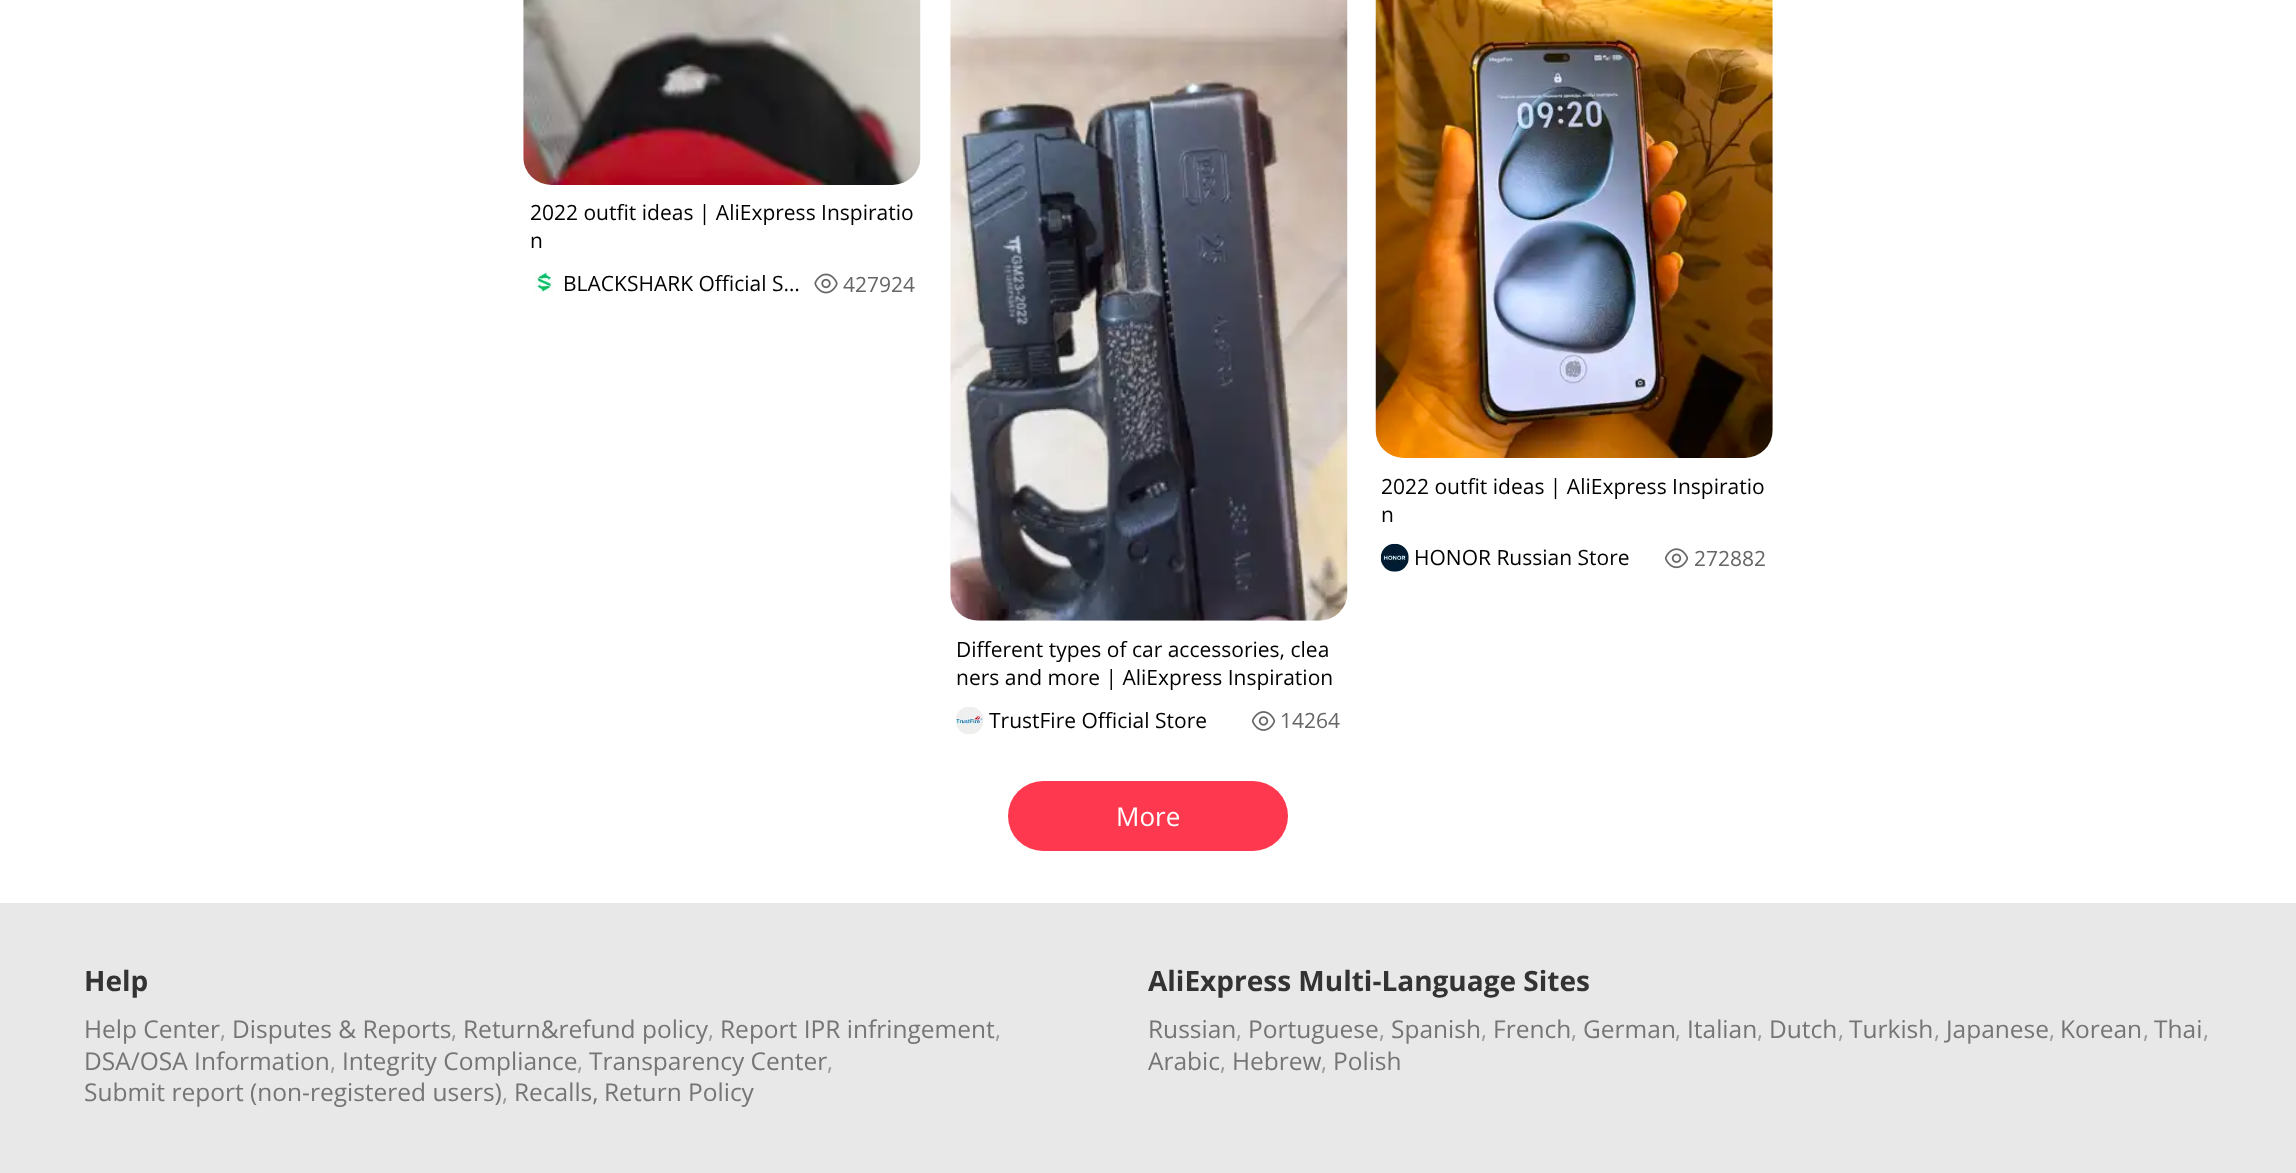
<!DOCTYPE html>
<meta charset="utf-8">
<style>body { margin: 0 } canvas { display: block }</style>
<canvas id="canvas" width="2296" height="1173"></canvas>
<img id="img1" src="images/1.png" hidden>
<img id="img2" src="images/2.png" hidden>
<img id="img3" src="images/3.png" hidden>
<img id="img4" src="images/4.png" hidden>
<img id="img5" src="images/5.png" hidden>
<img id="img6" src="images/6.png" hidden>
<img id="img7" src="images/7.png" hidden>
<img id="img8" src="images/8.png" hidden>
<img id="img9" src="images/9.png" hidden>
<script>
window.onload = function () {
    const canvas = document.getElementById('canvas');
    const context = canvas.getContext('2d');
    context.miterLimit = 4;
    context.fontKerning = 'normal';

    context.fillStyle = 'rgb(255, 255, 255)';
    context.fillRect(0, 0, 2296, 1173);
    context.drawImage(document.getElementById('img1'), 523, 0, 398, 185);
    context.drawImage(document.getElementById('img2'), 534, 271, 19, 24);
    context.drawImage(document.getElementById('img3'), 814, 273, 24, 21);
    context.drawImage(document.getElementById('img4'), 1375, 0, 398, 458);
    context.drawImage(document.getElementById('img5'), 1380, 543, 29, 29);
    context.drawImage(document.getElementById('img6'), 1664, 548, 25, 21);
    context.drawImage(document.getElementById('img7'), 950, 0, 398, 621);
    context.drawImage(document.getElementById('img8'), 956, 707, 27, 27);
    context.drawImage(document.getElementById('img9'), 1251, 711, 25, 20);
    context.fillStyle = 'rgb(253, 56, 79)';
    context.beginPath();
    context.roundRect(1008, 781, 280, 70, 35);
    context.fill();
    context.fillStyle = 'rgb(232, 232, 232)';
    context.fillRect(0, 903, 2296, 270);
    context.font = '21px Open Sans';
    context.fillStyle = 'rgb(0, 0, 0)';
    context.fillText('2022 outfit ideas | AliExpress Inspiratio', 530, 220);
    context.fillText('n', 530, 248);
    context.fillText('BLACKSHARK Official S…', 563, 291);
    context.fillStyle = 'rgb(102, 102, 102)';
    context.fillText('427924', 843, 292);
    context.fillStyle = 'rgb(0, 0, 0)';
    context.fillText('2022 outfit ideas | AliExpress Inspiratio', 1381, 494);
    context.fillText('n', 1381, 522);
    context.fillText('HONOR Russian Store', 1414, 565);
    context.fillStyle = 'rgb(102, 102, 102)';
    context.fillText('272882', 1694, 566);
    context.fillStyle = 'rgb(0, 0, 0)';
    context.fillText('Different types of car accessories, clea', 956, 657);
    context.fillText('ners and more | AliExpress Inspiration', 956, 685);
    context.fillText('TrustFire Official Store', 989, 728);
    context.fillStyle = 'rgb(102, 102, 102)';
    context.fillText('14264', 1280, 728);
    context.font = '26px Open Sans';
    context.fillStyle = 'rgb(255, 255, 255)';
    context.fillText('More', 1116, 826);
    context.font = 'bold 28px Open Sans';
    context.fillStyle = 'rgb(51, 51, 51)';
    context.fillText('Help', 84, 991);
    context.font = '24.5px Open Sans';
    context.fillStyle = 'rgb(117, 117, 117)';
    context.fillText('Help Center', 84, 1038);
    context.font = '23px Open Sans';
    context.fillStyle = 'rgb(153, 153, 153)';
    context.fillText(',', 220, 1038);
    context.font = '24.5px Open Sans';
    context.fillStyle = 'rgb(117, 117, 117)';
    context.fillText('Disputes & Reports', 232, 1038);
    context.font = '23px Open Sans';
    context.fillStyle = 'rgb(153, 153, 153)';
    context.fillText(',', 451, 1038);
    context.font = '24.5px Open Sans';
    context.fillStyle = 'rgb(117, 117, 117)';
    context.fillText('Return&refund policy', 463, 1038);
    context.font = '23px Open Sans';
    context.fillStyle = 'rgb(153, 153, 153)';
    context.fillText(',', 708, 1038);
    context.font = '24.5px Open Sans';
    context.fillStyle = 'rgb(117, 117, 117)';
    context.fillText('Report IPR infringement', 720, 1038);
    context.font = '23px Open Sans';
    context.fillStyle = 'rgb(153, 153, 153)';
    context.fillText(',', 995, 1038);
    context.font = '24.5px Open Sans';
    context.fillStyle = 'rgb(117, 117, 117)';
    context.fillText('DSA/OSA Information', 84, 1070);
    context.font = '23px Open Sans';
    context.fillStyle = 'rgb(153, 153, 153)';
    context.fillText(',', 330, 1070);
    context.font = '24.5px Open Sans';
    context.fillStyle = 'rgb(117, 117, 117)';
    context.fillText('Integrity Compliance', 342, 1070);
    context.font = '23px Open Sans';
    context.fillStyle = 'rgb(153, 153, 153)';
    context.fillText(',', 577, 1070);
    context.font = '24.5px Open Sans';
    context.fillStyle = 'rgb(117, 117, 117)';
    context.fillText('Transparency Center', 589, 1070);
    context.font = '23px Open Sans';
    context.fillStyle = 'rgb(153, 153, 153)';
    context.fillText(',', 827, 1070);
    context.font = '24.5px Open Sans';
    context.fillStyle = 'rgb(117, 117, 117)';
    context.fillText('Submit report (non-registered users)', 84, 1101);
    context.font = '23px Open Sans';
    context.fillStyle = 'rgb(153, 153, 153)';
    context.fillText(',', 502, 1101);
    context.font = '24.5px Open Sans';
    context.fillStyle = 'rgb(117, 117, 117)';
    context.fillText('Recalls,', 514, 1101);
    context.fillText('Return Policy', 604, 1101);
    context.font = 'bold 28px Open Sans';
    context.fillStyle = 'rgb(51, 51, 51)';
    context.fillText('AliExpress Multi-Language Sites', 1148, 991);
    context.font = '24.5px Open Sans';
    context.fillStyle = 'rgb(117, 117, 117)';
    context.fillText('Russian', 1148, 1038);
    context.font = '23px Open Sans';
    context.fillStyle = 'rgb(153, 153, 153)';
    context.fillText(',', 1236, 1038);
    context.font = '24.5px Open Sans';
    context.fillStyle = 'rgb(117, 117, 117)';
    context.fillText('Portuguese', 1248, 1038);
    context.font = '23px Open Sans';
    context.fillStyle = 'rgb(153, 153, 153)';
    context.fillText(',', 1379, 1038);
    context.font = '24.5px Open Sans';
    context.fillStyle = 'rgb(117, 117, 117)';
    context.fillText('Spanish', 1391, 1038);
    context.font = '23px Open Sans';
    context.fillStyle = 'rgb(153, 153, 153)';
    context.fillText(',', 1481, 1038);
    context.font = '24.5px Open Sans';
    context.fillStyle = 'rgb(117, 117, 117)';
    context.fillText('French', 1493, 1038);
    context.font = '23px Open Sans';
    context.fillStyle = 'rgb(153, 153, 153)';
    context.fillText(',', 1571, 1038);
    context.font = '24.5px Open Sans';
    context.fillStyle = 'rgb(117, 117, 117)';
    context.fillText('German', 1583, 1038);
    context.font = '23px Open Sans';
    context.fillStyle = 'rgb(153, 153, 153)';
    context.fillText(',', 1675, 1038);
    context.font = '24.5px Open Sans';
    context.fillStyle = 'rgb(117, 117, 117)';
    context.fillText('Italian', 1687, 1038);
    context.font = '23px Open Sans';
    context.fillStyle = 'rgb(153, 153, 153)';
    context.fillText(',', 1757, 1038);
    context.font = '24.5px Open Sans';
    context.fillStyle = 'rgb(117, 117, 117)';
    context.fillText('Dutch', 1769, 1038);
    context.font = '23px Open Sans';
    context.fillStyle = 'rgb(153, 153, 153)';
    context.fillText(',', 1838, 1038);
    context.font = '24.5px Open Sans';
    context.fillStyle = 'rgb(117, 117, 117)';
    context.fillText('Turkish', 1849, 1038);
    context.font = '23px Open Sans';
    context.fillStyle = 'rgb(153, 153, 153)';
    context.fillText(',', 1934, 1038);
    context.font = '24.5px Open Sans';
    context.fillStyle = 'rgb(117, 117, 117)';
    context.fillText('Japanese', 1946, 1038);
    context.font = '23px Open Sans';
    context.fillStyle = 'rgb(153, 153, 153)';
    context.fillText(',', 2049, 1038);
    context.font = '24.5px Open Sans';
    context.fillStyle = 'rgb(117, 117, 117)';
    context.fillText('Korean', 2060, 1038);
    context.font = '23px Open Sans';
    context.fillStyle = 'rgb(153, 153, 153)';
    context.fillText(',', 2143, 1038);
    context.font = '24.5px Open Sans';
    context.fillStyle = 'rgb(117, 117, 117)';
    context.fillText('Thai', 2154, 1038);
    context.font = '23px Open Sans';
    context.fillStyle = 'rgb(153, 153, 153)';
    context.fillText(',', 2203, 1038);
    context.font = '24.5px Open Sans';
    context.fillStyle = 'rgb(117, 117, 117)';
    context.fillText('Arabic', 1148, 1070);
    context.font = '23px Open Sans';
    context.fillStyle = 'rgb(153, 153, 153)';
    context.fillText(',', 1220, 1070);
    context.font = '24.5px Open Sans';
    context.fillStyle = 'rgb(117, 117, 117)';
    context.fillText('Hebrew', 1232, 1070);
    context.font = '23px Open Sans';
    context.fillStyle = 'rgb(153, 153, 153)';
    context.fillText(',', 1321, 1070);
    context.font = '24.5px Open Sans';
    context.fillStyle = 'rgb(117, 117, 117)';
    context.fillText('Polish', 1333, 1070);
};
</script>
